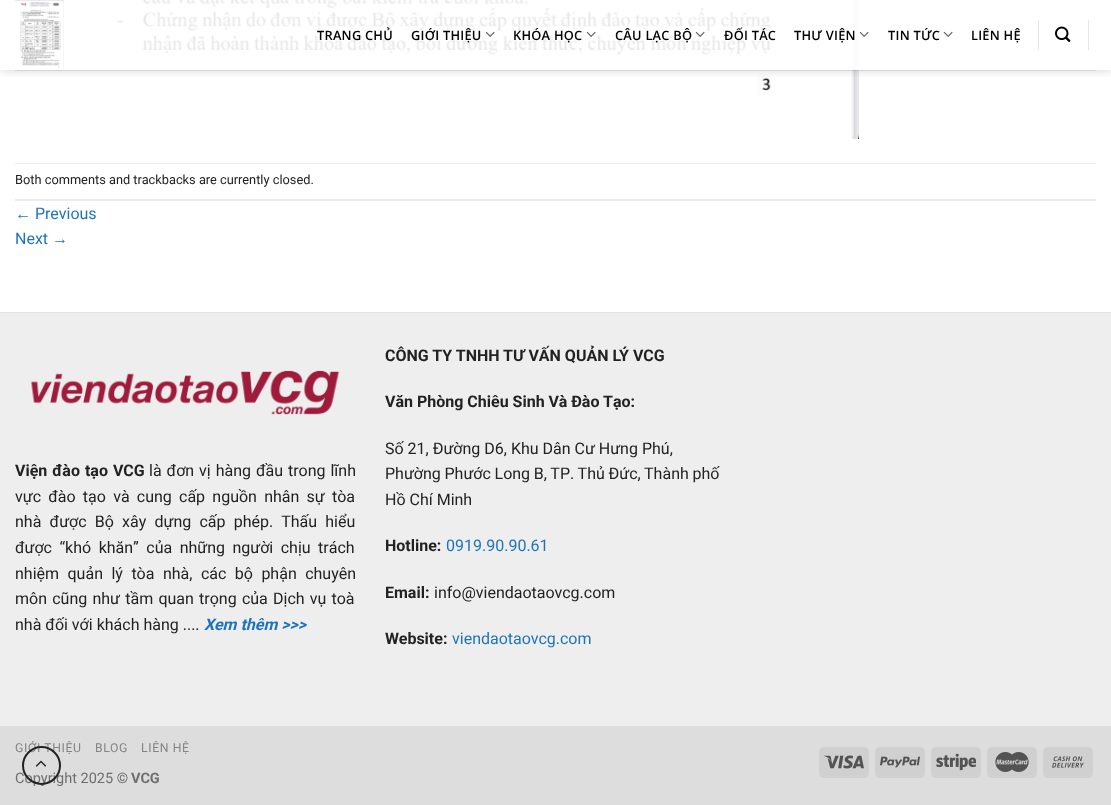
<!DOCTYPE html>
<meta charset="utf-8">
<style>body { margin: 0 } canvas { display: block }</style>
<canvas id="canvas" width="1111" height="805"></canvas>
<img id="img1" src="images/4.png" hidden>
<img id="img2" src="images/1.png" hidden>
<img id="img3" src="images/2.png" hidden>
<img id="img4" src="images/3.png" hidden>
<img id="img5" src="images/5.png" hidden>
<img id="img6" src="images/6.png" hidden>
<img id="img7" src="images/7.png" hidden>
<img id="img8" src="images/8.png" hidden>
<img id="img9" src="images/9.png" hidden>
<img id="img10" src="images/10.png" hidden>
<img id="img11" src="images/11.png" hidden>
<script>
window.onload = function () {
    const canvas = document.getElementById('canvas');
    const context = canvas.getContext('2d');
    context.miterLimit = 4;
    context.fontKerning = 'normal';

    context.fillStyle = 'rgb(255, 255, 255)';
    context.fillRect(0, 0, 1111, 805);
    context.drawImage(document.getElementById('img1'), 116, 0, 743, 139);
    context.save();
    context.beginPath();
    context.rect(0, 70, 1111, 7);
    context.clip();
    context.fillStyle = 'rgba(0, 0, 0, 0.15)';
    context.filter = 'blur(5px)';
    context.beginPath();
    context.rect(1, 1, 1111, 70);
    context.fill();
    context.filter = 'none';
    context.restore();
    context.fillStyle = 'rgba(255, 255, 255, 0.9)';
    context.fillRect(116, 0, 743, 70);
    context.drawImage(document.getElementById('img2'), 15, 0, 49, 70);
    context.drawImage(document.getElementById('img3'), 485, 31, 10, 6);
    context.drawImage(document.getElementById('img3'), 586, 31, 10, 6);
    context.drawImage(document.getElementById('img3'), 695, 31, 10, 6);
    context.drawImage(document.getElementById('img3'), 859, 31, 10, 6);
    context.drawImage(document.getElementById('img3'), 943, 31, 10, 6);
    context.fillStyle = 'rgb(230, 230, 230)';
    context.fillRect(1038, 20, 1, 30);
    context.drawImage(document.getElementById('img4'), 1055, 26, 16, 16);
    context.fillRect(1088, 20, 1, 30);
    context.fillStyle = 'rgba(34, 34, 34, 0.1)';
    context.fillRect(15, 70, 1081, 1);
    context.fillStyle = 'rgb(236, 236, 236)';
    context.fillRect(15, 163, 1081, 1);
    context.fillRect(15, 199, 1081, 2);
    context.fillStyle = 'rgb(238, 238, 238)';
    context.fillRect(0, 313, 1111, 413);
    context.fillStyle = 'rgb(226, 226, 226)';
    context.fillRect(0, 312, 1111, 1);
    context.drawImage(document.getElementById('img5'), 30, 370, 310, 45);
    context.fillStyle = 'rgb(221, 221, 221)';
    context.fillRect(0, 726, 1111, 79);
    context.fillStyle = 'rgb(208, 208, 208)';
    context.beginPath();
    context.roundRect(819, 747, 50, 31, 5);
    context.fill();
    context.drawImage(document.getElementById('img6'), 824, 755, 40, 14);
    context.beginPath();
    context.roundRect(875, 747, 50, 31, 5);
    context.fill();
    context.drawImage(document.getElementById('img7'), 880, 756, 40, 12);
    context.beginPath();
    context.roundRect(931, 747, 50, 31, 5);
    context.fill();
    context.drawImage(document.getElementById('img8'), 936, 753, 40, 18);
    context.beginPath();
    context.roundRect(987, 747, 50, 31, 5);
    context.fill();
    context.drawImage(document.getElementById('img9'), 995, 752, 34, 20);
    context.beginPath();
    context.roundRect(1043, 747, 50, 31, 5);
    context.fill();
    context.drawImage(document.getElementById('img10'), 1052, 756, 32, 12);
    context.letterSpacing = '0.25px';
    context.font = '600 12.8px Open Sans';
    context.fillStyle = 'rgb(0, 0, 0)';
    context.fillText('TRANG CHỦ', 317, 40);
    context.fillText('GIỚI THIỆU', 411, 40);
    context.fillText('KHÓA HỌC', 513, 40);
    context.fillText('CÂU LẠC BỘ', 615, 40);
    context.fillText('ĐỐI TÁC', 724, 40);
    context.fillText('THƯ VIỆN', 794, 40);
    context.fillText('TIN TỨC', 888, 40);
    context.fillText('LIÊN HỆ', 971, 40);
    context.letterSpacing = '0px';
    context.font = '12.8px Roboto';
    context.fillStyle = 'rgb(34, 34, 34)';
    context.fillText('Both comments and trackbacks are currently closed.', 15, 184);
    context.font = '16px Liberation Sans';
    context.fillStyle = 'rgb(30, 115, 190)';
    context.fillText('←', 15, 219);
    context.font = '16px Roboto';
    context.fillText('Previous', 35, 219);
    context.fillText('Next', 15, 244);
    context.font = '16px Liberation Sans';
    context.fillText('→', 52, 244);
    context.wordSpacing = '1px';
    context.font = 'bold 16px Roboto';
    context.fillStyle = 'rgb(34, 34, 34)';
    context.fillText('Viện đào tạo VCG', 15, 476);
    context.font = '16px Roboto';
    context.fillText('là đơn vị hàng đầu trong lĩnh', 149, 476);
    context.wordSpacing = '3.25px';
    context.fillText('vực đào tạo và cung cấp nguồn nhân sự tòa', 15, 502);
    context.wordSpacing = '4.25px';
    context.fillText('nhà được Bộ xây dựng cấp phép. Thấu hiểu', 15, 527);
    context.wordSpacing = '3.5px';
    context.fillText('được “khó khăn” của những người chịu trách', 15, 553);
    context.wordSpacing = '4.5px';
    context.fillText('nhiệm quản lý tòa nhà, các bộ phận chuyên', 15, 579);
    context.wordSpacing = '1.25px';
    context.fillText('môn cũng như tầm quan trọng của Dịch vụ toà', 15, 604);
    context.wordSpacing = '0px';
    context.fillText('nhà đối với khách hàng ....', 15, 630);
    context.font = 'italic bold 16px Roboto';
    context.fillStyle = 'rgb(30, 115, 190)';
    context.fillText('Xem thêm >>>', 204, 630);
    context.font = 'bold 16px Roboto';
    context.fillStyle = 'rgb(34, 34, 34)';
    context.fillText('CÔNG TY TNHH TƯ VẤN QUẢN LÝ VCG', 385, 361);
    context.fillText('Văn Phòng Chiêu Sinh Và Đào Tạo:', 385, 407);
    context.font = '16px Roboto';
    context.fillText('Số 21, Đường D6, Khu Dân Cư Hưng Phú,', 385, 454);
    context.wordSpacing = '-0.25px';
    context.fillText('Phường Phước Long B, TP. Thủ Đức, Thành phố', 385, 479);
    context.wordSpacing = '0px';
    context.fillText('Hồ Chí Minh', 385, 505);
    context.font = 'bold 16px Roboto';
    context.fillText('Hotline:', 385, 551);
    context.font = '16px Roboto';
    context.fillStyle = 'rgb(30, 115, 190)';
    context.fillText('0919.90.90.61', 446, 551);
    context.font = 'bold 16px Roboto';
    context.fillStyle = 'rgb(34, 34, 34)';
    context.fillText('Email:', 385, 598);
    context.font = '16px Roboto';
    context.fillText('info@viendaotaovcg.com', 434, 598);
    context.font = 'bold 16px Roboto';
    context.fillText('Website:', 385, 644);
    context.font = '16px Roboto';
    context.fillStyle = 'rgb(30, 115, 190)';
    context.fillText('viendaotaovcg.com', 452, 644);
    context.letterSpacing = '0.6px';
    context.font = '12.25px Roboto';
    context.fillStyle = 'rgb(133, 133, 133)';
    context.fillText('GIỚI THIỆU', 15, 752);
    context.fillText('BLOG', 95, 752);
    context.fillText('LIÊN HỆ', 141, 752);
    context.letterSpacing = '0px';
    context.font = '14.5px Roboto';
    context.fillStyle = 'rgb(111, 111, 111)';
    context.fillText('Copyright 2025 ©', 15, 783);
    context.font = 'bold 14.5px Roboto';
    context.fillText('VCG', 131, 783);
    context.beginPath();
    context.arc(41.5, 765.5, 18.5, 0, 2 * Math.PI);
    context.strokeStyle = 'rgb(34, 34, 34)';
    context.lineWidth = 2;
    context.stroke();
    context.drawImage(document.getElementById('img11'), 35, 760, 12, 7);
};
</script>
